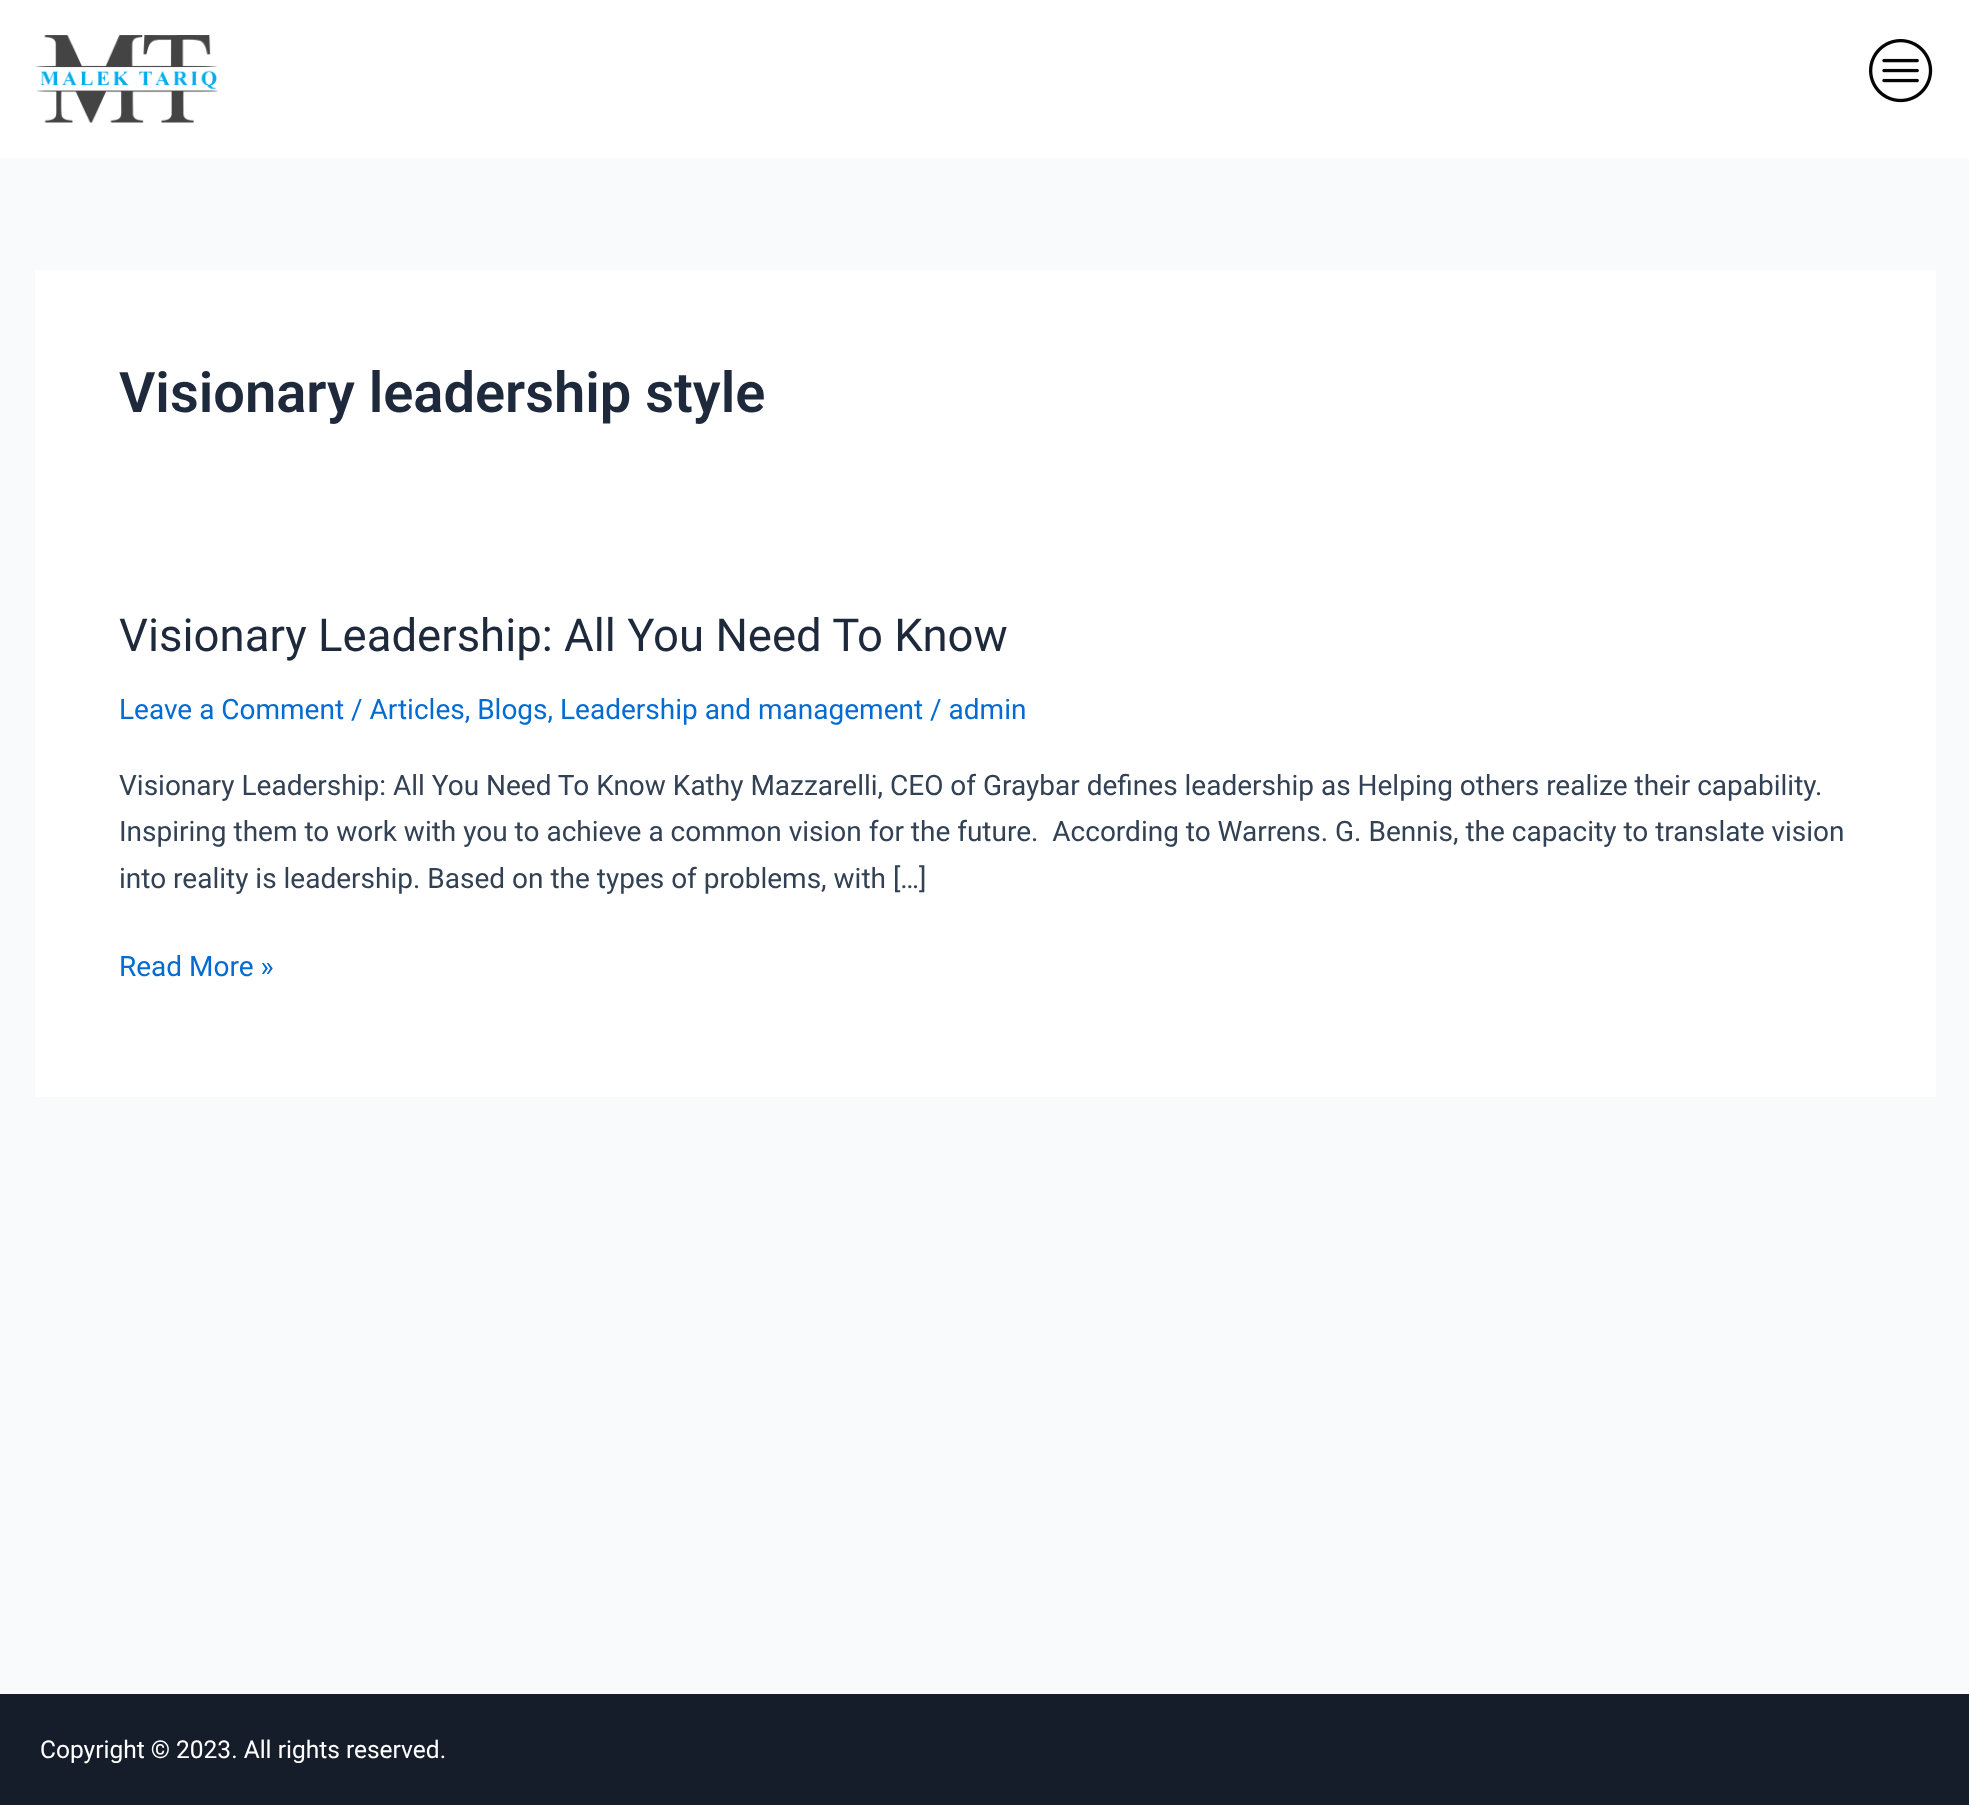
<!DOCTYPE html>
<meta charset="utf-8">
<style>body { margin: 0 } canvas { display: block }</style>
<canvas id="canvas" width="1969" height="1805"></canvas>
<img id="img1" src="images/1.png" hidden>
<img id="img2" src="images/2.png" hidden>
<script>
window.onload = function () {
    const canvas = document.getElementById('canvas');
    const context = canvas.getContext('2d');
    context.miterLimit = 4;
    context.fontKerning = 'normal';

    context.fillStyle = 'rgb(249, 250, 251)';
    context.fillRect(0, 0, 1969, 1805);
    context.fillStyle = 'rgb(255, 255, 255)';
    context.fillRect(0, 0, 1969, 158);
    context.drawImage(document.getElementById('img1'), 35, 35, 183, 88);
    context.drawImage(document.getElementById('img2'), 1869, 39, 64, 64);
    context.fillRect(35, 270, 1901, 827);
    context.fillStyle = 'rgb(21, 29, 42)';
    context.fillRect(0, 1694, 1969, 111);
    context.font = '600 56px Roboto';
    context.fillStyle = 'rgb(30, 41, 59)';
    context.fillText('Visionary leadership style', 119, 412);
    context.font = '45.5px Roboto';
    context.fillText('Visionary Leadership: All You Need To Know', 119, 651);
    context.font = '28px Roboto';
    context.fillStyle = 'rgb(4, 107, 210)';
    context.fillText('Leave a Comment / Articles, Blogs, Leadership and management / admin', 119, 719);
    context.fillStyle = 'rgb(51, 65, 85)';
    context.fillText('Visionary Leadership: All You Need To Know Kathy Mazzarelli, CEO of Graybar defines leadership as Helping others realize their capability.', 119, 795);
    context.fillText('Inspiring them to work with you to achieve a common vision for the future.  According to Warrens. G. Bennis, the capacity to translate vision', 119, 841);
    context.fillText('into reality is leadership. Based on the types of problems, with […]', 119, 888);
    context.fillStyle = 'rgb(4, 107, 210)';
    context.fillText('Read More »', 119, 976);
    context.font = '24.5px Roboto';
    context.fillStyle = 'rgb(255, 255, 255)';
    context.fillText('Copyright © 2023. All rights reserved.', 40, 1758);
};
</script>
